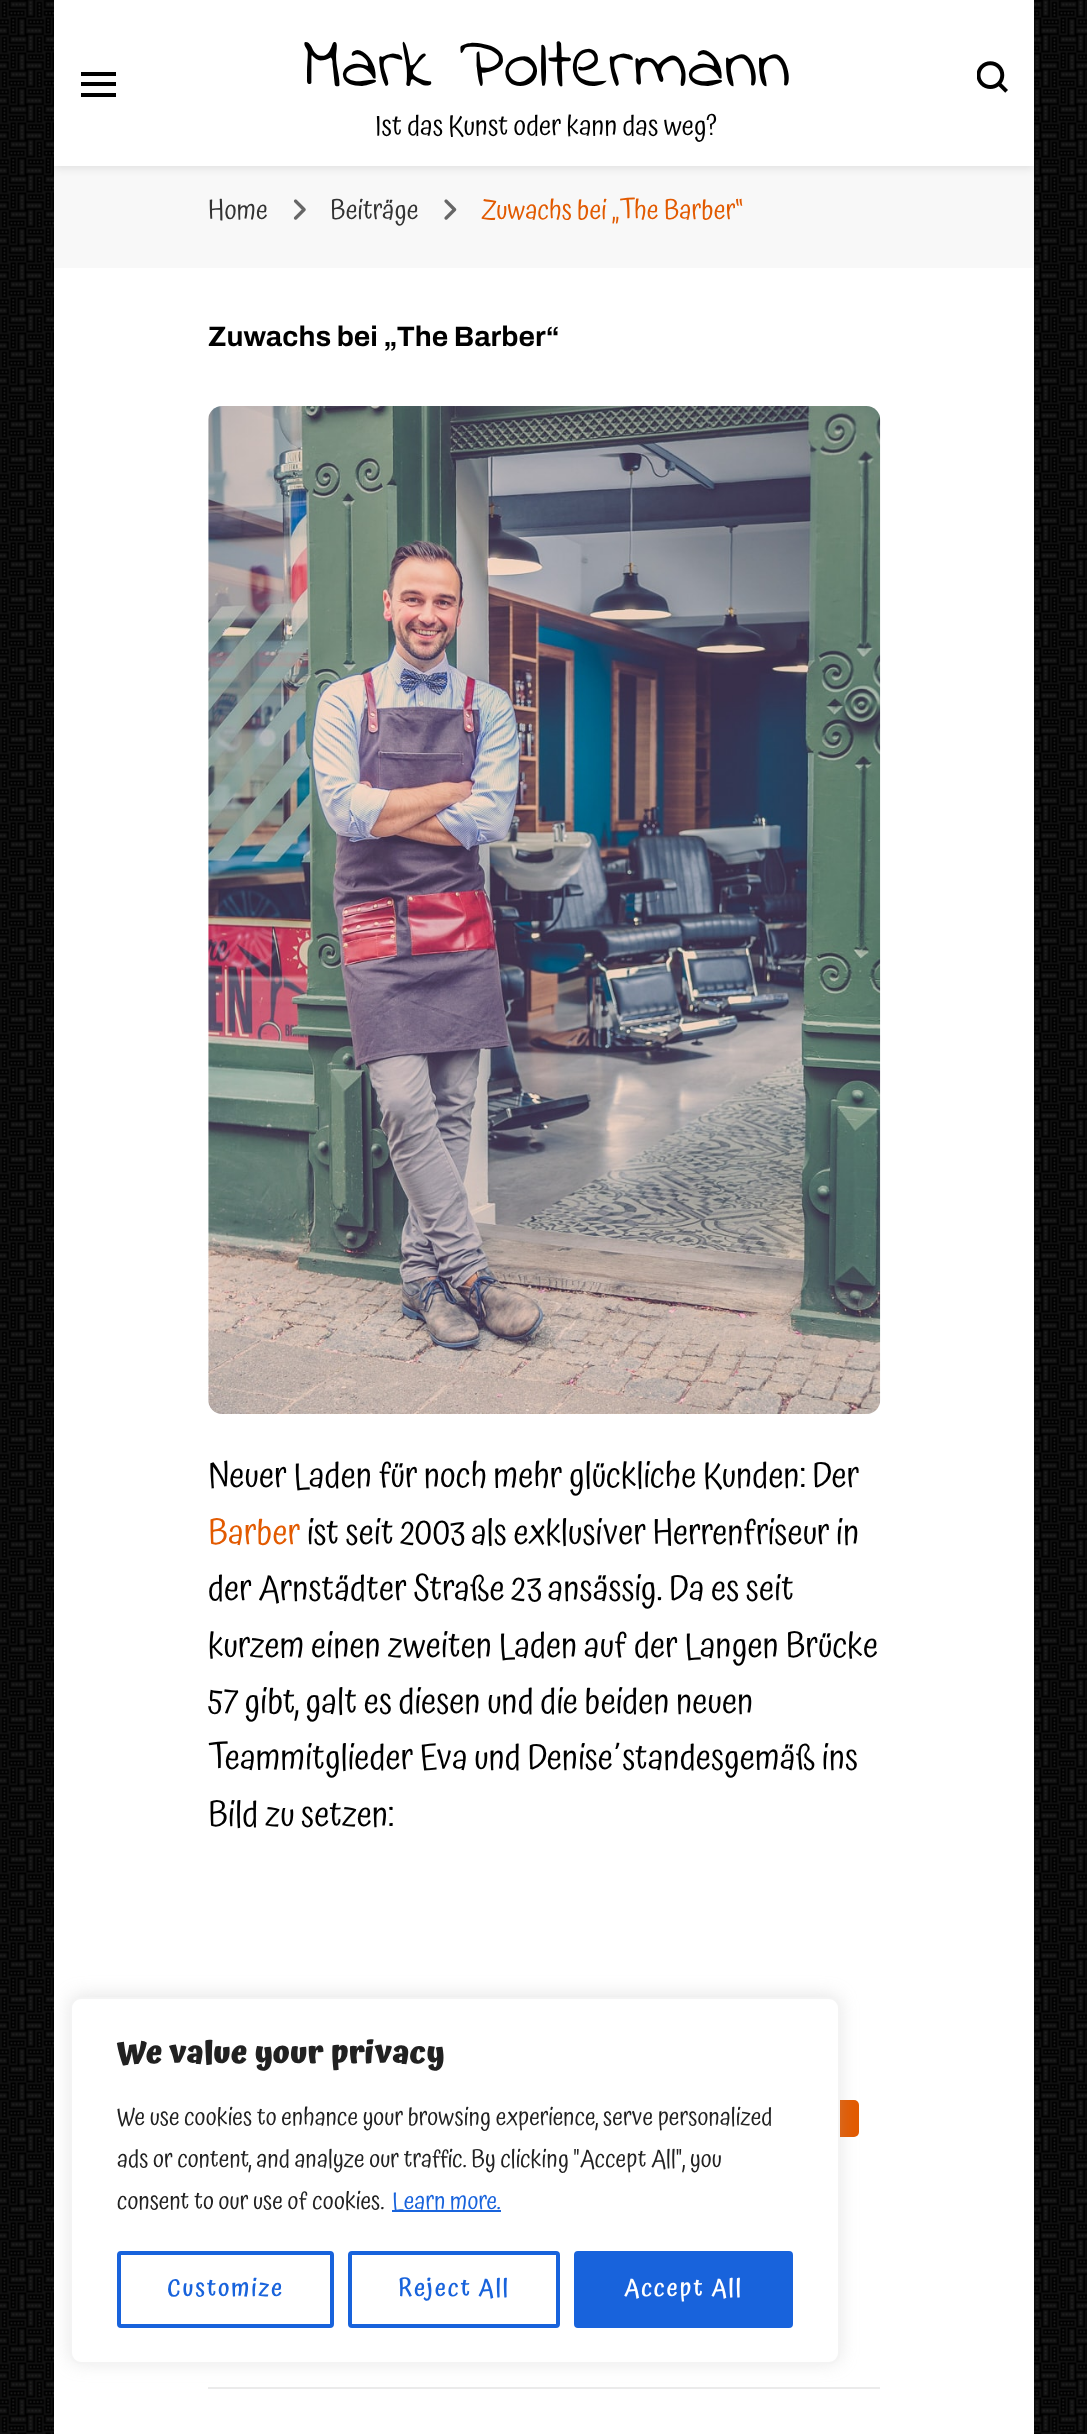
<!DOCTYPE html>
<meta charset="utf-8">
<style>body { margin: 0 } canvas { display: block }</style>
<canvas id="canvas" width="1087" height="2434"></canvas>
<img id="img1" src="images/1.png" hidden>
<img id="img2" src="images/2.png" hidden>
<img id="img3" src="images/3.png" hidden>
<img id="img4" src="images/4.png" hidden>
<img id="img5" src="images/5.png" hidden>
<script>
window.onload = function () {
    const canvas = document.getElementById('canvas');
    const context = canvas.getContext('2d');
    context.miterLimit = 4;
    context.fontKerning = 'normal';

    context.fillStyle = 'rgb(255, 255, 255)';
    context.fillRect(0, 0, 1087, 2434);
    context.drawImage(document.getElementById('img1'), 0, 0, 1087, 2434);
    context.fillStyle = 'rgb(248, 248, 248)';
    context.fillRect(54, 166, 980, 102);
    context.fillStyle = 'rgba(0, 0, 0, 0.1)';
    context.filter = 'blur(4.5px)';
    context.beginPath();
    context.rect(54, 2, 980, 166);
    context.fill();
    context.filter = 'none';
    context.fillStyle = 'rgb(255, 255, 255)';
    context.fillRect(54, 0, 980, 166);
    context.fillStyle = 'rgb(0, 0, 0)';
    context.fillRect(81, 72, 35, 4);
    context.fillRect(81, 82, 35, 4);
    context.fillRect(81, 93, 35, 4);
    context.drawImage(document.getElementById('img2'), 977, 61, 31, 32);
    context.drawImage(document.getElementById('img3'), 293, 199, 13, 21);
    context.drawImage(document.getElementById('img4'), 444, 199, 13, 21);
    context.fillStyle = 'rgb(255, 255, 255)';
    context.fillRect(54, 268, 980, 2166);
    context.drawImage(document.getElementById('img5'), 208, 406, 673, 1008);
    context.fillStyle = 'rgb(226, 90, 0)';
    context.beginPath();
    context.roundRect(749, 2100, 110, 37, 5);
    context.fill();
    context.fillStyle = 'rgb(235, 235, 235)';
    context.fillRect(208, 2387, 672, 2);
    context.fillStyle = 'rgba(172, 171, 171, 0.3)';
    context.filter = 'blur(9px)';
    context.beginPath();
    context.roundRect(70, 1995, 770, 368, 11);
    context.fill();
    context.filter = 'none';
    context.fillStyle = 'rgb(255, 255, 255)';
    context.beginPath();
    context.roundRect(71, 1998, 768, 365, 10);
    context.fill();
    context.strokeStyle = 'rgb(244, 244, 244)';
    context.lineWidth = 2;
    context.stroke();
    context.fillStyle = 'rgb(24, 99, 220)';
    context.fillRect(392, 2210, 109, 2);
    context.beginPath();
    context.roundRect(119, 2253, 213, 73, 2);
    context.strokeStyle = 'rgb(24, 99, 220)';
    context.lineWidth = 4;
    context.stroke();
    context.beginPath();
    context.roundRect(350, 2253, 208, 73, 2);
    context.stroke();
    context.beginPath();
    context.roundRect(576, 2253, 215, 73, 2);
    context.fill();
    context.stroke();
    context.font = '72px Indie Flower';
    context.fillStyle = 'rgb(0, 0, 0)';
    context.fillText('Mark Poltermann', 303, 86);
    context.font = '28px Atma';
    context.fillText('Ist das Kunst oder kann das weg?', 375, 135);
    context.font = '27.25px Atma';
    context.fillStyle = 'rgb(51, 51, 51)';
    context.fillText('Home', 208, 219);
    context.fillText('Beiträge', 330, 219);
    context.fillStyle = 'rgb(226, 90, 0)';
    context.fillText('Zuwachs bei „The Barber“', 481, 219);
    context.font = '600 28.25px Archivo';
    context.fillStyle = 'rgb(0, 0, 0)';
    context.fillText('Zuwachs bei „The Barber“', 208, 346);
    context.font = '35px Atma';
    context.fillText('Neuer Laden für noch mehr glückliche Kunden: Der', 208, 1487);
    context.fillStyle = 'rgb(226, 90, 0)';
    context.fillText('Barber', 208, 1544);
    context.fillStyle = 'rgb(0, 0, 0)';
    context.fillText('ist seit 2003 als exklusiver Herrenfriseur in', 307, 1544);
    context.fillText('der Arnstädter Straße 23 ansässig. Da es seit', 208, 1600);
    context.fillText('kurzem einen zweiten Laden auf der Langen Brücke', 208, 1657);
    context.fillText('57 gibt, galt es diesen und die beiden neuen', 208, 1713);
    context.fillText('Teammitglieder Eva und Denise´standesgemäß ins', 208, 1769);
    context.fillText('Bild zu setzen:', 208, 1826);
    context.font = 'bold 31.5px Atma';
    context.fillStyle = 'rgb(33, 33, 33)';
    context.fillText('We value your privacy', 117, 2063);
    context.font = '24.5px Atma';
    context.fillText('We use cookies to enhance your browsing experience, serve personalized', 117, 2125);
    context.fillText('ads or content, and analyze our traffic. By clicking "Accept All", you', 117, 2167);
    context.fillText('consent to our use of cookies.', 117, 2209);
    context.fillStyle = 'rgb(24, 99, 220)';
    context.fillText('Learn more.', 392, 2209);
    context.letterSpacing = '1.75px';
    context.font = '500 24.5px Atma';
    context.fillText('Customize', 167, 2296);
    context.fillText('Reject All', 398, 2296);
    context.fillStyle = 'rgb(255, 255, 255)';
    context.fillText('Accept All', 624, 2296);
};
</script>
